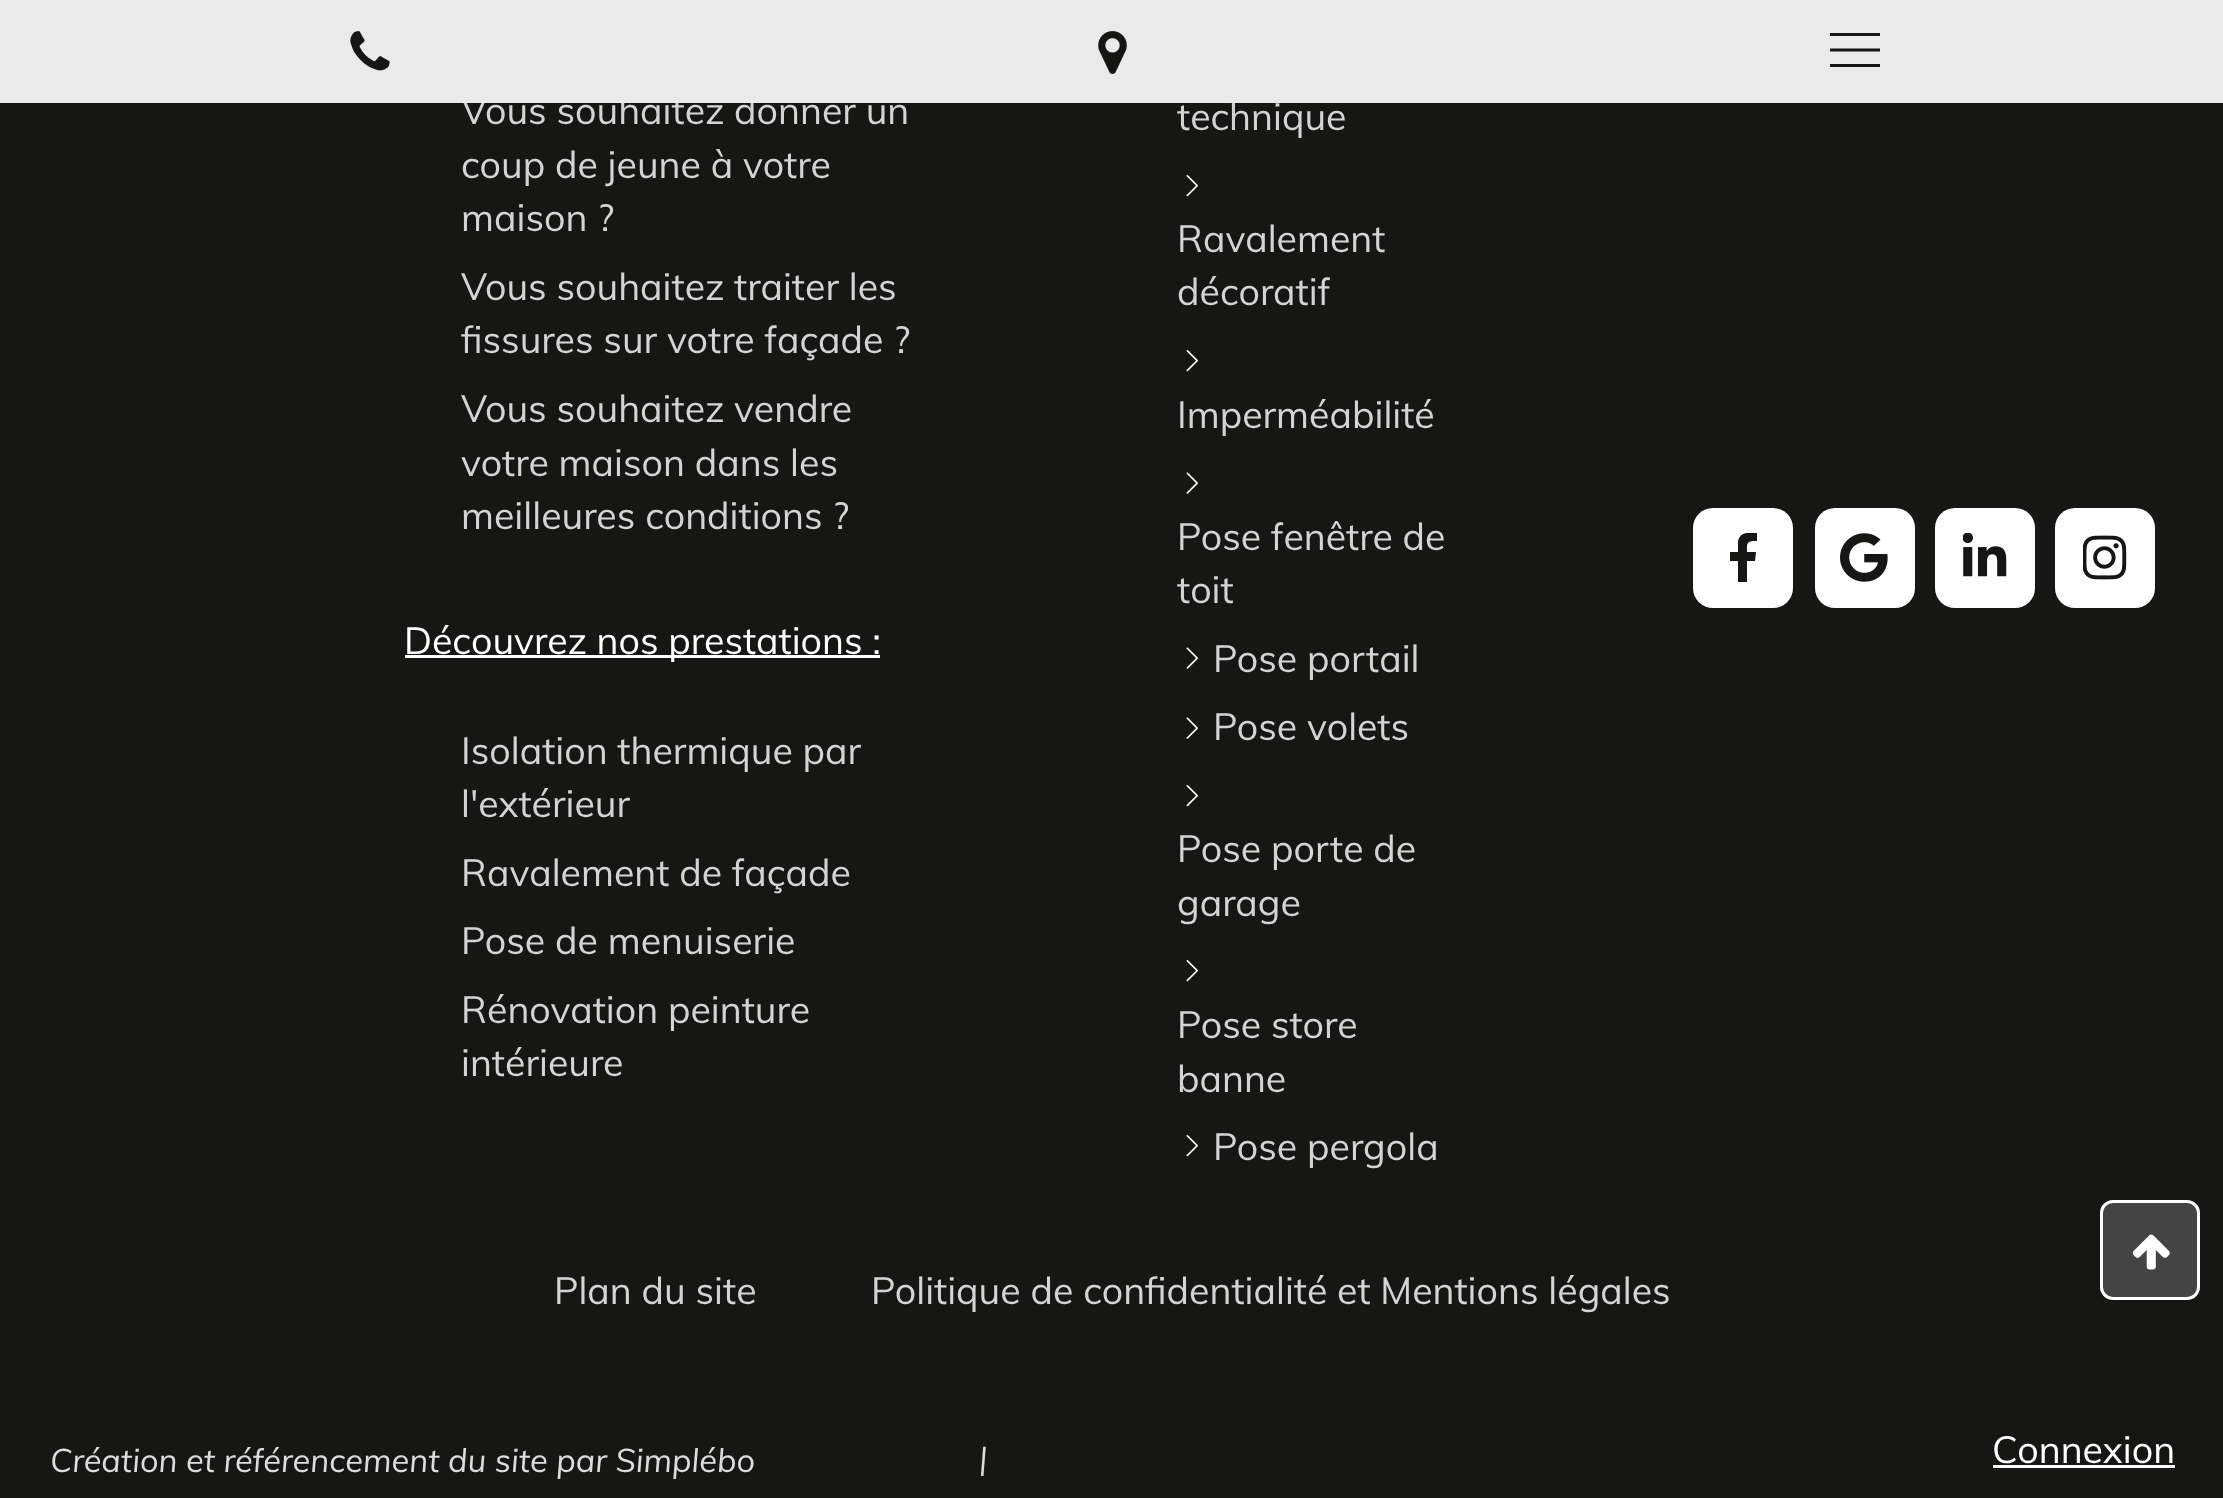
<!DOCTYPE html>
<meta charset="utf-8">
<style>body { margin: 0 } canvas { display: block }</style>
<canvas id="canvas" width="2223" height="1498"></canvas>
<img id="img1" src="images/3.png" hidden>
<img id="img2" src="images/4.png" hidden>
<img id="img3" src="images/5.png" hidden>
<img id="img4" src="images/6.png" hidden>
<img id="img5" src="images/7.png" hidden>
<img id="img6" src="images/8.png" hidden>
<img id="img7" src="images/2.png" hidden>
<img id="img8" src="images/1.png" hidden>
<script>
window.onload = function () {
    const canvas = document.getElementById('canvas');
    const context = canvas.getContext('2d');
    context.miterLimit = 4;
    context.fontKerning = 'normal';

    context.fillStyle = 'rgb(22, 22, 21)';
    context.fillRect(0, 0, 2223, 1498);
    context.fillStyle = 'rgb(255, 255, 255)';
    context.fillRect(405, 655, 475, 3);
    context.drawImage(document.getElementById('img1'), 1186, 175, 12, 22);
    context.drawImage(document.getElementById('img1'), 1186, 350, 12, 22);
    context.drawImage(document.getElementById('img2'), 1186, 472, 12, 22);
    context.drawImage(document.getElementById('img2'), 1186, 647, 12, 22);
    context.drawImage(document.getElementById('img2'), 1186, 717, 12, 22);
    context.drawImage(document.getElementById('img1'), 1186, 785, 12, 22);
    context.drawImage(document.getElementById('img1'), 1186, 960, 12, 22);
    context.drawImage(document.getElementById('img1'), 1186, 1135, 12, 22);
    context.beginPath();
    context.roundRect(1693, 508, 100, 100, 20);
    context.fill();
    context.save();
    context.beginPath();
    context.rect(1728, 533, 32, 50);
    context.clip();
    context.fillStyle = 'rgb(22, 22, 21)';
    context.beginPath();
    context.moveTo(1755, 561);
    context.lineTo(1756, 552);
    context.lineTo(1747, 552);
    context.bezierCurveTo(1747, 543, 1746, 541, 1757, 541);
    context.lineTo(1757, 533);
    context.bezierCurveTo(1749, 532, 1739, 532, 1738, 542);
    context.lineTo(1738, 552);
    context.lineTo(1730, 552);
    context.lineTo(1730, 561);
    context.lineTo(1738, 561);
    context.lineTo(1738, 582);
    context.lineTo(1747, 582);
    context.lineTo(1747, 561);
    context.closePath();
    context.fill();
    context.restore();
    context.beginPath();
    context.roundRect(1815, 508, 100, 100, 20);
    context.fill();
    context.drawImage(document.getElementById('img3'), 1840, 533, 48, 49);
    context.beginPath();
    context.roundRect(1935, 508, 100, 100, 20);
    context.fill();
    context.drawImage(document.getElementById('img4'), 1963, 533, 44, 44);
    context.beginPath();
    context.roundRect(2055, 508, 100, 100, 20);
    context.fill();
    context.drawImage(document.getElementById('img5'), 2083, 535, 44, 45);
    context.fillRect(1993, 1465, 182, 3);
    context.fillStyle = 'rgb(68, 68, 68)';
    context.beginPath();
    context.roundRect(2101.5, 1201.5, 97, 97, 11.5);
    context.fill();
    context.strokeStyle = 'rgb(255, 255, 255)';
    context.lineWidth = 3;
    context.stroke();
    context.drawImage(document.getElementById('img6'), 2132, 1234, 38, 36);
    context.font = '37.5px Muli';
    context.fillStyle = 'rgb(212, 212, 212)';
    context.fillText('Vous souhaitez donner un', 461, 124);
    context.fillText('coup de jeune à votre', 461, 178);
    context.fillText('maison ?', 461, 231);
    context.fillText('Vous souhaitez traiter les', 461, 300);
    context.fillText('fissures sur votre façade ?', 461, 353);
    context.fillText('Vous souhaitez vendre', 461, 422);
    context.fillText('votre maison dans les', 461, 476);
    context.fillText('meilleures conditions ?', 461, 529);
    context.fillStyle = 'rgb(255, 255, 255)';
    context.fillText('Découvrez nos prestations :', 404, 654);
    context.fillStyle = 'rgb(212, 212, 212)';
    context.fillText('Isolation thermique par', 461, 764);
    context.fillText('l\'extérieur', 461, 817);
    context.fillText('Ravalement de façade', 461, 886);
    context.fillText('Pose de menuiserie', 461, 954);
    context.fillText('Rénovation peinture', 461, 1023);
    context.fillText('intérieure', 461, 1076);
    context.fillText('technique', 1177, 130);
    context.fillStyle = 'rgb(234, 234, 234)';
    context.fillRect(0, 0, 2223, 103);
    context.fillStyle = 'rgb(22, 22, 21)';
    context.fillRect(1830, 64, 50, 3);
    context.fillRect(1830, 33, 50, 3);
    context.beginPath();
    context.moveTo(1830, 50);
    context.lineTo(1880, 50);
    context.strokeStyle = 'rgb(22, 22, 21)';
    context.stroke();
    context.drawImage(document.getElementById('img7'), 1098, 31, 29, 43);
    context.drawImage(document.getElementById('img8'), 350, 31, 40, 40);
    context.fillStyle = 'rgb(212, 212, 212)';
    context.fillText('Ravalement', 1177, 252);
    context.fillText('décoratif', 1177, 305);
    context.fillText('Imperméabilité', 1177, 428);
    context.fillText('Pose fenêtre de', 1177, 550);
    context.fillText('toit', 1177, 603);
    context.fillText('Pose portail', 1213, 672);
    context.fillText('Pose volets', 1213, 740);
    context.fillText('Pose porte de', 1177, 862);
    context.fillText('garage', 1177, 916);
    context.fillText('Pose store', 1177, 1038);
    context.fillText('banne', 1177, 1092);
    context.fillText('Pose pergola', 1213, 1160);
    context.fillText('Plan du site', 554, 1304);
    context.fillText('Politique de confidentialité et Mentions légales', 871, 1304);
    context.font = 'italic 32.5px Muli';
    context.fillStyle = 'rgb(220, 220, 220)';
    context.fillText('Création et référencement du site par Simplébo', 50, 1472);
    context.fillText('|', 979, 1470);
    context.font = '37.5px Muli';
    context.fillStyle = 'rgb(255, 255, 255)';
    context.fillText('Connexion', 1992, 1463);
};
</script>
